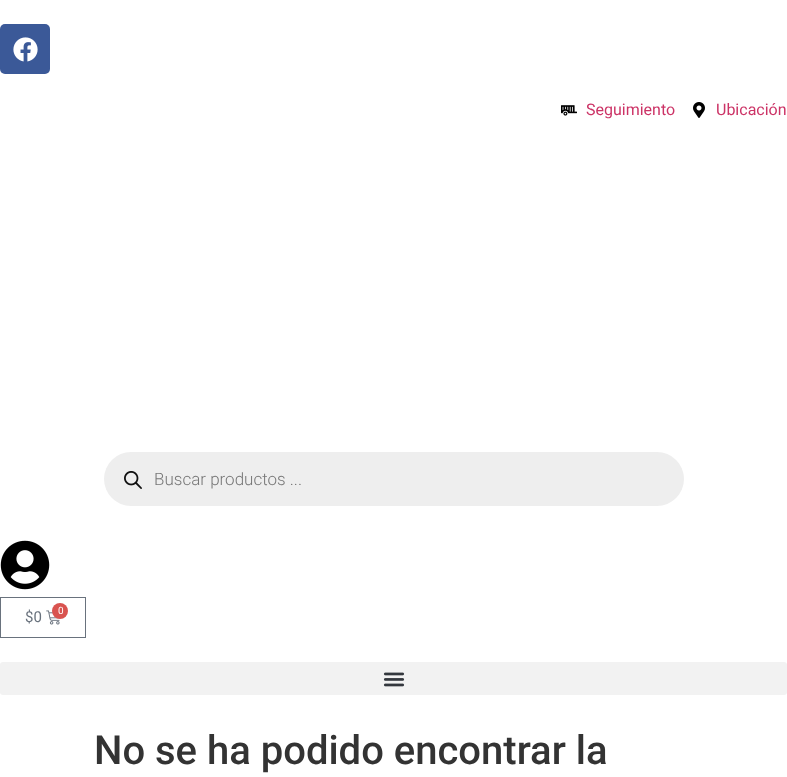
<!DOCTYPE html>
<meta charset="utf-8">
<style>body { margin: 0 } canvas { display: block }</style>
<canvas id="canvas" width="787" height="777"></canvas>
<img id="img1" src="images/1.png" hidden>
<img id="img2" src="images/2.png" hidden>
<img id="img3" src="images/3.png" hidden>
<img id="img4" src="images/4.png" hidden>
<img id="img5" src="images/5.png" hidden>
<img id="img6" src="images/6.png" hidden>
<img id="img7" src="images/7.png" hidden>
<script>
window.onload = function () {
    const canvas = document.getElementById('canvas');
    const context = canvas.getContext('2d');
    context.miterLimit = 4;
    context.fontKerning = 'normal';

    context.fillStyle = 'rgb(255, 255, 255)';
    context.fillRect(0, 0, 787, 777);
    context.fillStyle = 'rgb(59, 89, 152)';
    context.beginPath();
    context.roundRect(0, 24, 50, 50, 5);
    context.fill();
    context.drawImage(document.getElementById('img1'), 13, 37, 25, 25);
    context.drawImage(document.getElementById('img2'), 561, 105, 16, 11);
    context.drawImage(document.getElementById('img3'), 693, 102, 12, 16);
    context.fillStyle = 'rgb(238, 238, 238)';
    context.beginPath();
    context.roundRect(104, 452, 580, 54, 27);
    context.fill();
    context.drawImage(document.getElementById('img4'), 124, 471, 18, 18);
    context.drawImage(document.getElementById('img5'), 0, 540, 50, 50);
    context.strokeStyle = 'rgb(105, 114, 125)';
    context.strokeRect(0.5, 597.5, 85, 40);
    context.drawImage(document.getElementById('img6'), 46, 610, 14, 15);
    context.fillStyle = 'rgb(217, 83, 79)';
    context.beginPath();
    context.arc(60, 611, 8, 0, 2 * Math.PI);
    context.fill();
    context.fillStyle = 'rgb(242, 242, 242)';
    context.beginPath();
    context.roundRect(0, 662, 787, 33, 3);
    context.fill();
    context.drawImage(document.getElementById('img7'), 383, 672, 22, 15);
    context.font = '16px Roboto';
    context.fillStyle = 'rgb(204, 51, 102)';
    context.fillText('Seguimiento', 586, 115);
    context.fillText('Ubicación', 716, 115);
    context.font = '300 17px Roboto';
    context.fillStyle = 'rgb(119, 119, 119)';
    context.fillText('Buscar productos ...', 154, 485);
    context.font = '15px Roboto';
    context.fillStyle = 'rgb(105, 114, 125)';
    context.fillText('$0', 25, 622);
    context.font = '10px Roboto';
    context.fillStyle = 'rgb(255, 255, 255)';
    context.fillText('0', 58, 614);
    context.font = '500 40px Roboto';
    context.fillStyle = 'rgb(51, 51, 51)';
    context.fillText('No se ha podido encontrar la', 94, 764);
};
</script>
